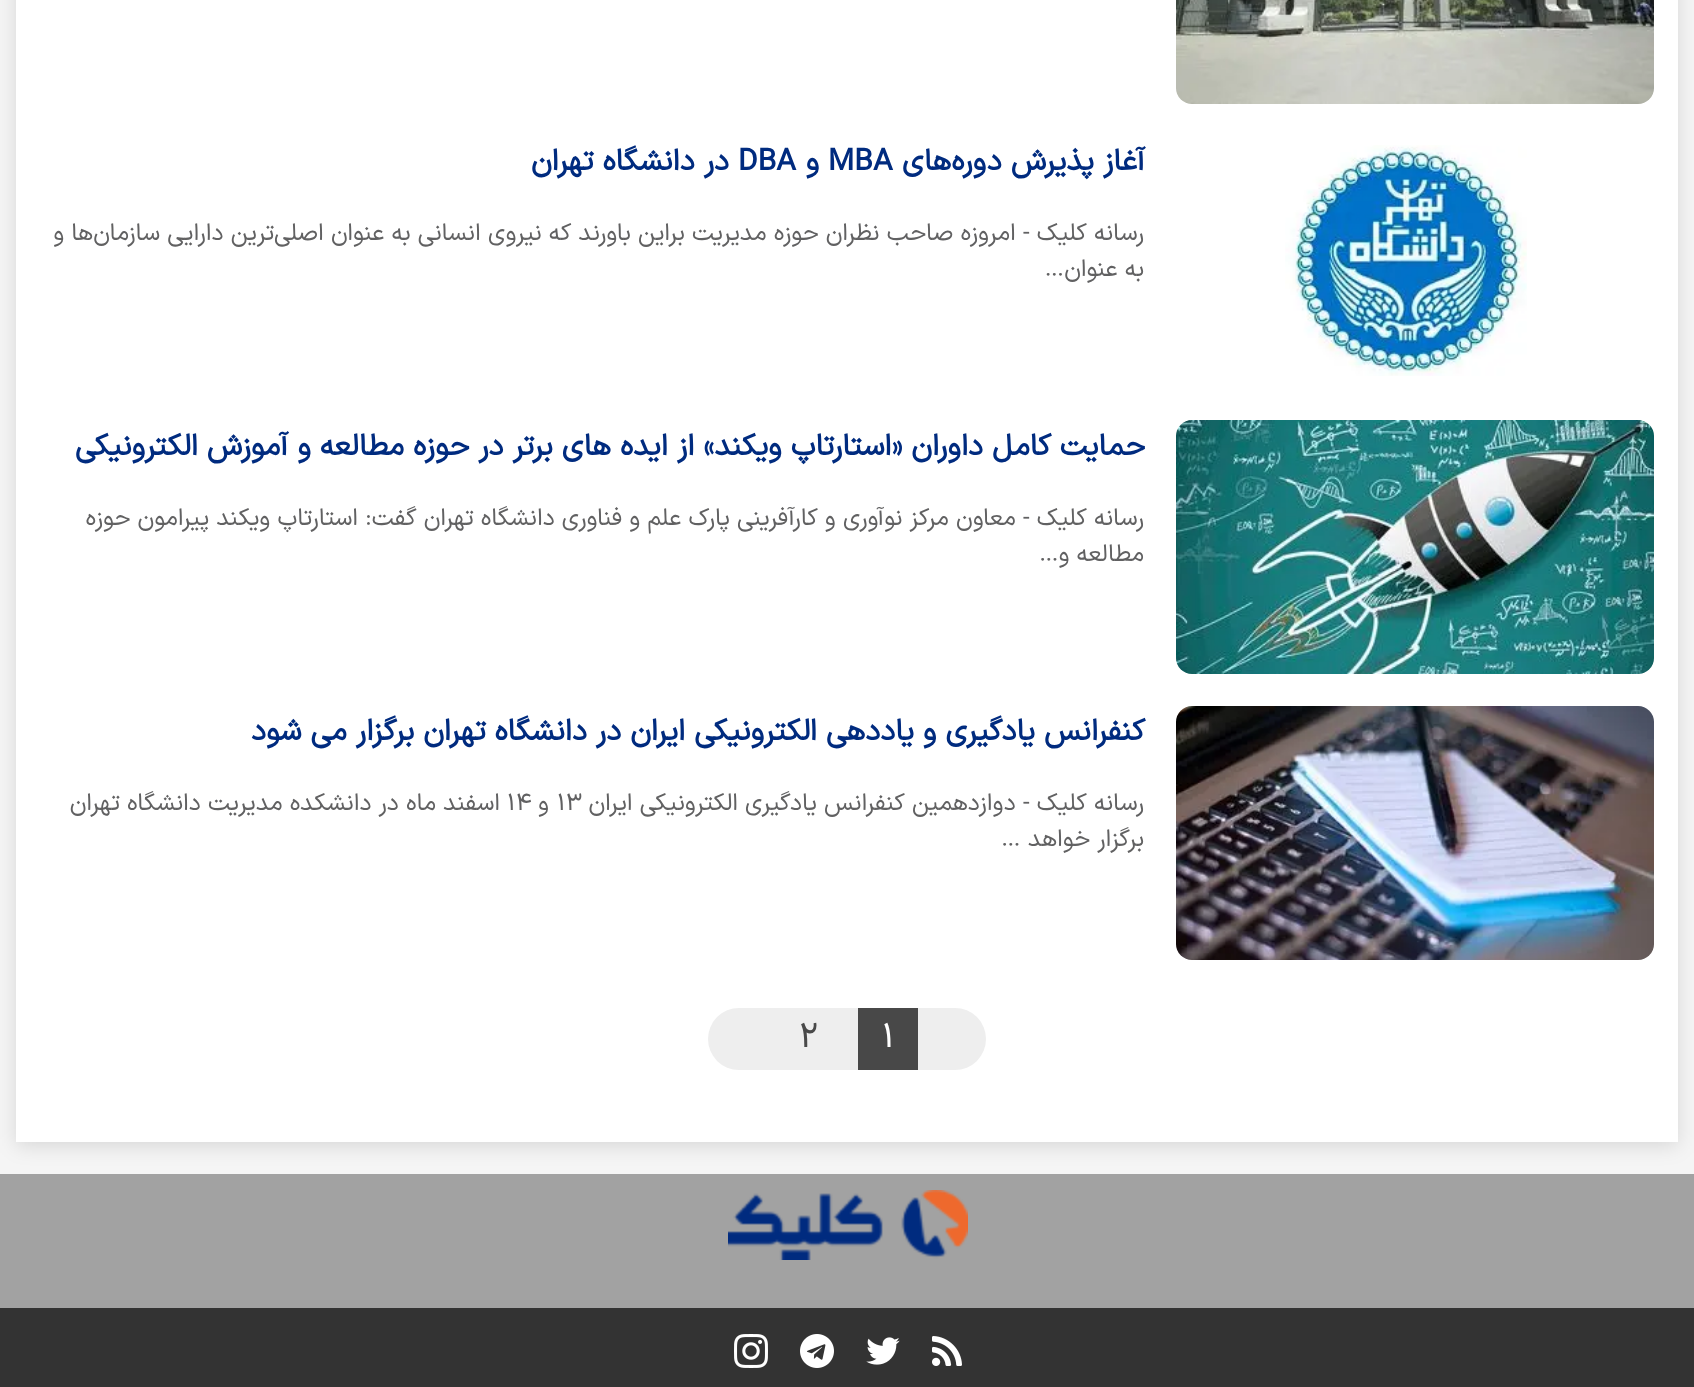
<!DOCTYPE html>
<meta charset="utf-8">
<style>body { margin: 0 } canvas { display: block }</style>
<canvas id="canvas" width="1694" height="1387"></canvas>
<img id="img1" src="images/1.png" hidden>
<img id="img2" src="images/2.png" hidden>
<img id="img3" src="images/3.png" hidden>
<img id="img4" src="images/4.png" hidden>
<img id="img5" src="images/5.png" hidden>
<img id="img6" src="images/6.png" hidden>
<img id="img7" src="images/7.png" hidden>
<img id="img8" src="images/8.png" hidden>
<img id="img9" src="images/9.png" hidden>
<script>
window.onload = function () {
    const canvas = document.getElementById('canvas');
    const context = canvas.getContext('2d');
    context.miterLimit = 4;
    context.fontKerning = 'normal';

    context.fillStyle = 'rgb(245, 245, 245)';
    context.fillRect(0, 0, 1694, 1387);
    context.fillStyle = 'rgb(162, 162, 162)';
    context.fillRect(0, 1174, 1694, 134);
    context.fillStyle = 'rgba(0, 0, 0, 0.12)';
    context.filter = 'blur(10px)';
    context.beginPath();
    context.rect(16, -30, 1662, 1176);
    context.fill();
    context.filter = 'none';
    context.fillStyle = 'rgb(255, 255, 255)';
    context.fillRect(16, 0, 1662, 1142);
    context.drawImage(document.getElementById('img1'), 1176, 0, 478, 104);
    context.drawImage(document.getElementById('img2'), 1285, 145, 242, 231);
    context.drawImage(document.getElementById('img3'), 1176, 420, 478, 254);
    context.drawImage(document.getElementById('img4'), 1176, 706, 478, 254);
    context.fillStyle = 'rgb(238, 238, 238)';
    context.beginPath();
    context.roundRect(708, 1008, 278, 62, 31);
    context.fill();
    context.fillStyle = 'rgb(72, 72, 72)';
    context.fillRect(858, 1008, 60, 62);
    context.drawImage(document.getElementById('img5'), 728, 1190, 240, 70);
    context.fillStyle = 'rgb(51, 51, 51)';
    context.fillRect(0, 1308, 1694, 79);
    context.drawImage(document.getElementById('img6'), 932, 1336, 30, 30);
    context.drawImage(document.getElementById('img7'), 866, 1337, 34, 28);
    context.drawImage(document.getElementById('img8'), 800, 1334, 34, 34);
    context.drawImage(document.getElementById('img9'), 734, 1334, 34, 34);
    context.direction = 'rtl';
    context.font = 'bold 30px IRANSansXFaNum';
    context.fillStyle = 'rgb(0, 43, 127)';
    context.fillText('آغاز پذیرش دوره‌های', 1145, 170);
    context.direction = 'ltr';
    context.fillText('MBA', 828, 170);
    context.direction = 'rtl';
    context.fillText('و', 819, 170);
    context.direction = 'ltr';
    context.fillText('DBA', 738, 170);
    context.direction = 'rtl';
    context.fillText('در دانشگاه تهران', 729, 170);
    context.font = '24px IRANSansXFaNum';
    context.fillStyle = 'rgb(97, 97, 98)';
    context.fillText('رسانه کلیک - امروزه صاحب نظران حوزه مدیریت براین باورند که نیروی انسانی به عنوان اصلی‌ترین دارایی سازمان‌ها و', 1144, 240);
    context.fillText('به عنوان…', 1144, 276);
    context.font = 'bold 30px IRANSansXFaNum';
    context.fillStyle = 'rgb(0, 43, 127)';
    context.fillText('حمایت کامل داوران «استارتاپ ویکند» از ایده های برتر در حوزه مطالعه و آموزش الکترونیکی', 1145, 455);
    context.font = '24px IRANSansXFaNum';
    context.fillStyle = 'rgb(97, 97, 98)';
    context.fillText('رسانه کلیک - معاون مرکز نوآوری و کارآفرینی پارک علم و فناوری دانشگاه تهران گفت: استارتاپ ویکند پیرامون حوزه', 1144, 525);
    context.fillText('مطالعه و…', 1144, 561);
    context.font = 'bold 30px IRANSansXFaNum';
    context.fillStyle = 'rgb(0, 43, 127)';
    context.fillText('کنفرانس یادگیری و یاددهی الکترونیکی ایران در دانشگاه تهران برگزار می شود', 1145, 740);
    context.font = '24px IRANSansXFaNum';
    context.fillStyle = 'rgb(97, 97, 98)';
    context.fillText('رسانه کلیک - دوازدهمین کنفرانس یادگیری الکترونیکی ایران', 1144, 810);
    context.direction = 'ltr';
    context.fillText('۱۳', 557, 810);
    context.direction = 'rtl';
    context.fillText('و', 549, 810);
    context.direction = 'ltr';
    context.fillText('۱۴', 507, 810);
    context.direction = 'rtl';
    context.fillText('اسفند ماه در دانشکده مدیریت دانشگاه تهران', 500, 810);
    context.fillText('برگزار خواهد …', 1144, 846);
    context.direction = 'ltr';
    context.font = '35px IRANSansXFaNum';
    context.fillStyle = 'rgb(255, 255, 255)';
    context.fillText('۱', 882, 1047);
    context.fillStyle = 'rgb(73, 73, 73)';
    context.fillText('۲', 799, 1047);
};
</script>
